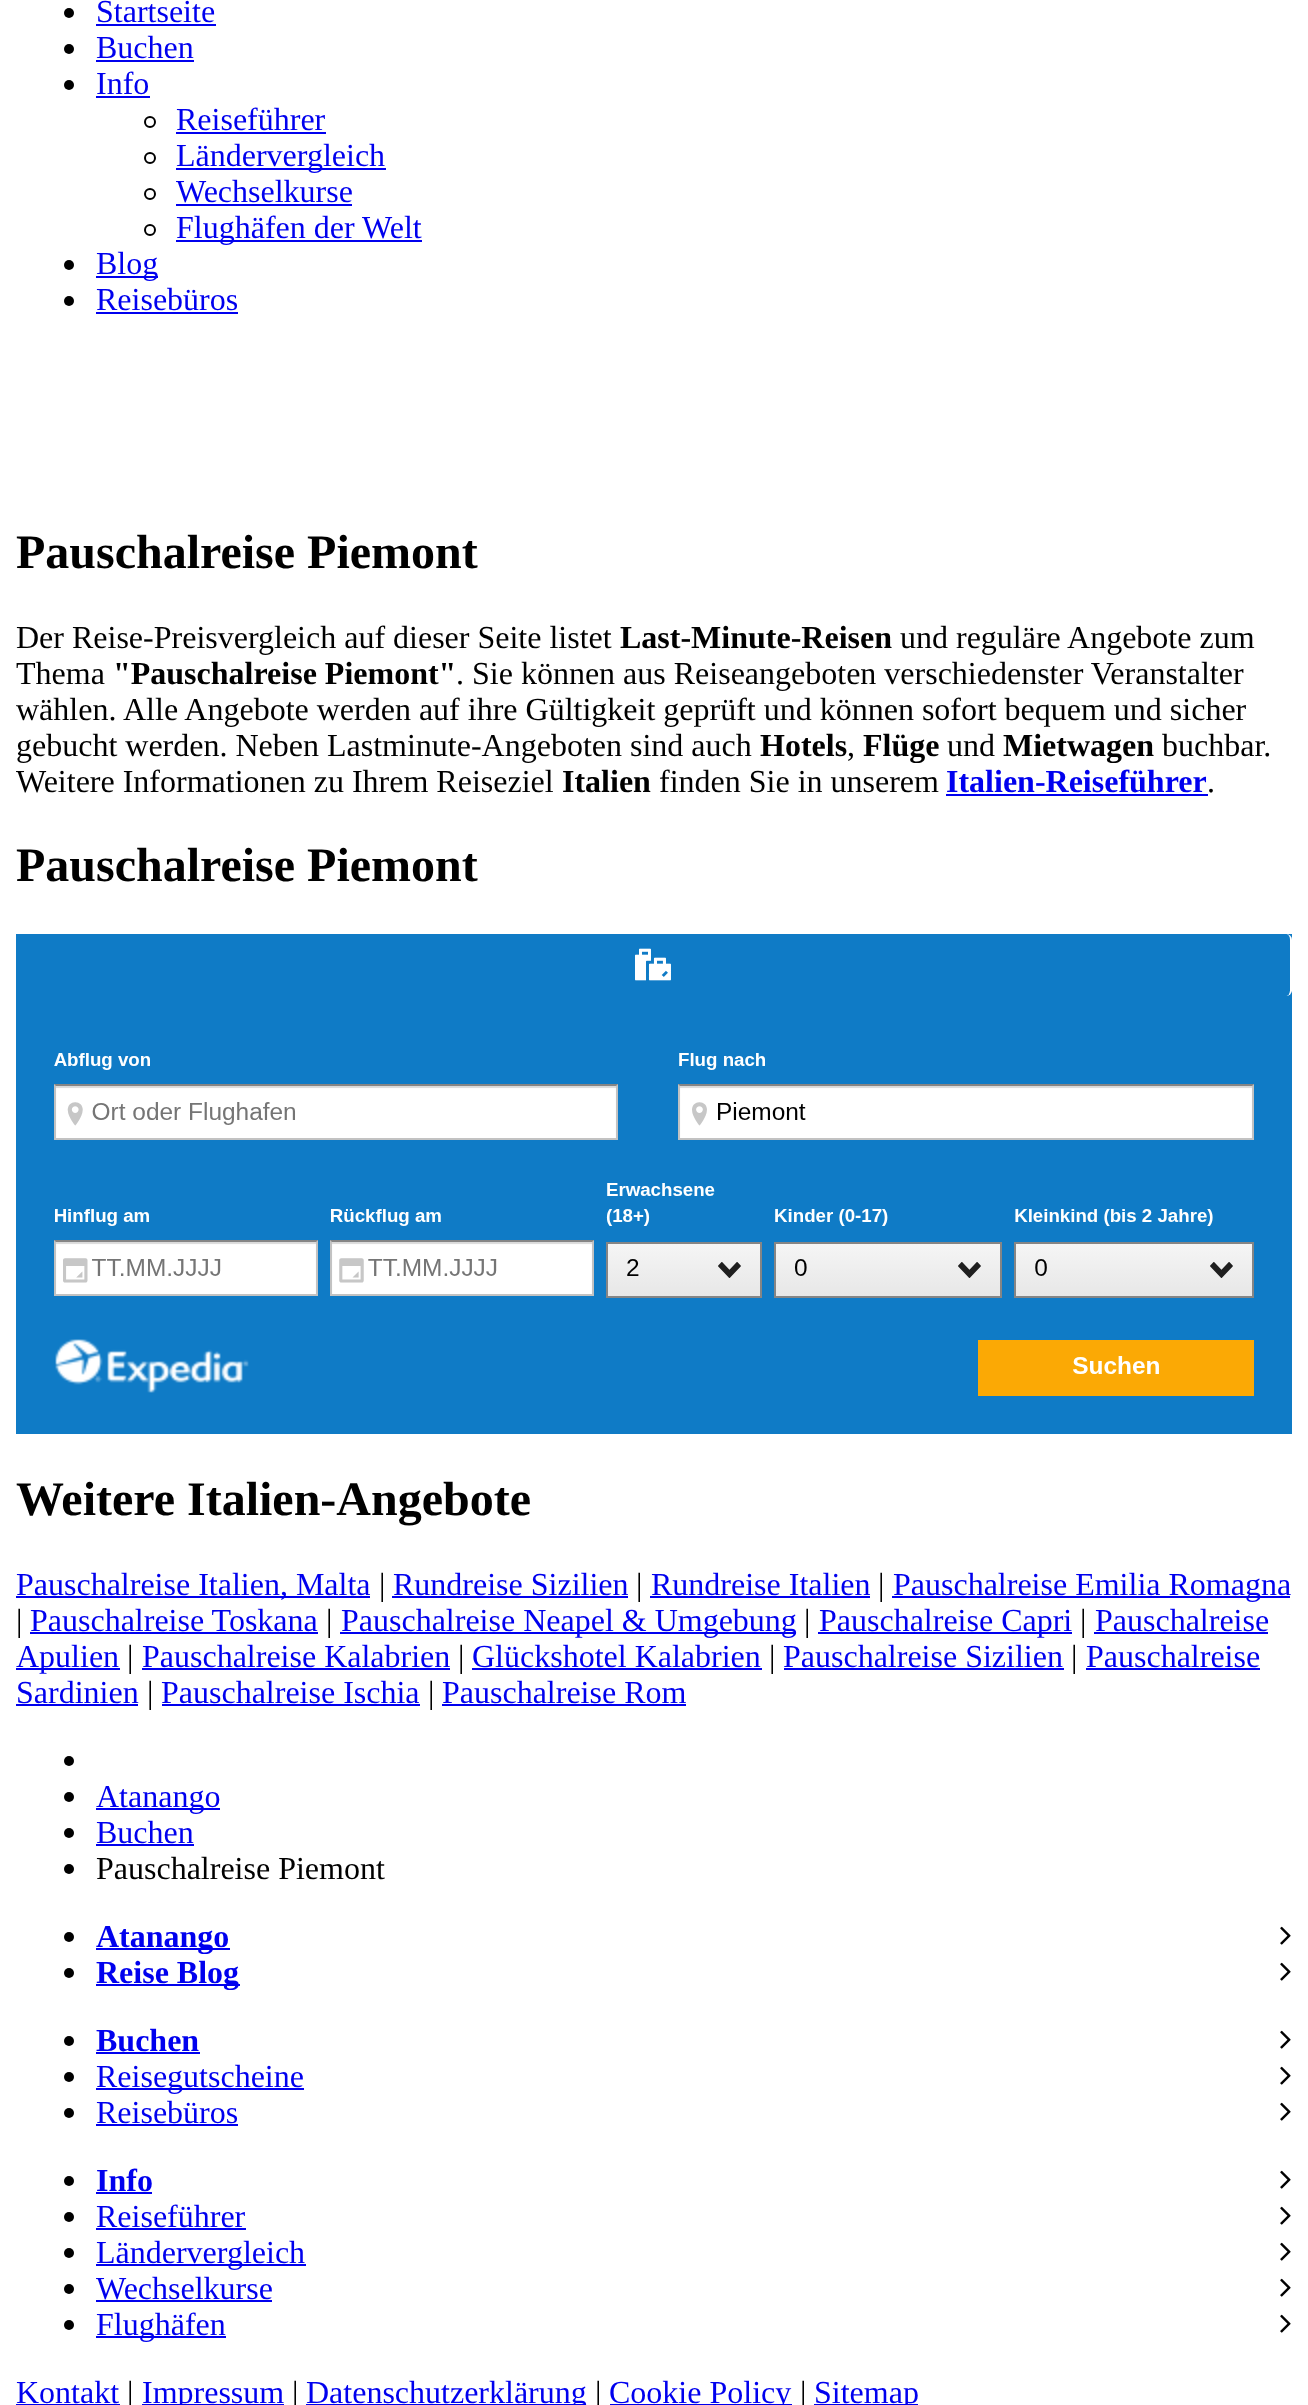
<!DOCTYPE html>
<meta charset="utf-8">
<style>body { margin: 0 } canvas { display: block }</style>
<canvas id="canvas" width="1308" height="2405"></canvas>
<img id="img1" src="images/1.png" hidden>
<img id="img2" src="images/2.png" hidden>
<script>
window.onload = function () {
    const canvas = document.getElementById('canvas');
    const context = canvas.getContext('2d');
    context.miterLimit = 4;
    context.fontKerning = 'normal';

    context.fillStyle = 'rgb(255, 255, 255)';
    context.fillRect(0, 0, 1308, 2405);
    context.fillStyle = 'rgb(0, 0, 0)';
    context.beginPath();
    context.arc(69, 13, 5, 0, 2 * Math.PI);
    context.fill();
    context.fillStyle = 'rgb(0, 0, 238)';
    context.fillRect(96, 24, 120, 2);
    context.fillStyle = 'rgb(0, 0, 0)';
    context.beginPath();
    context.arc(69, 49, 5, 0, 2 * Math.PI);
    context.fill();
    context.fillStyle = 'rgb(0, 0, 238)';
    context.fillRect(96, 60, 98, 2);
    context.fillStyle = 'rgb(0, 0, 0)';
    context.beginPath();
    context.arc(69, 85, 5, 0, 2 * Math.PI);
    context.fill();
    context.fillStyle = 'rgb(0, 0, 238)';
    context.fillRect(96, 96, 54, 2);
    context.beginPath();
    context.arc(150, 122, 5, 0, 2 * Math.PI);
    context.strokeStyle = 'rgb(0, 0, 0)';
    context.lineWidth = 2;
    context.stroke();
    context.fillRect(176, 132, 150, 2);
    context.beginPath();
    context.arc(150, 158, 5, 0, 2 * Math.PI);
    context.stroke();
    context.fillRect(176, 168, 210, 2);
    context.beginPath();
    context.arc(150, 194, 5, 0, 2 * Math.PI);
    context.stroke();
    context.fillRect(176, 204, 176, 2);
    context.beginPath();
    context.arc(150, 230, 5, 0, 2 * Math.PI);
    context.stroke();
    context.fillRect(176, 240, 246, 2);
    context.fillStyle = 'rgb(0, 0, 0)';
    context.beginPath();
    context.arc(69, 265, 5, 0, 2 * Math.PI);
    context.fill();
    context.fillStyle = 'rgb(0, 0, 238)';
    context.fillRect(96, 276, 62, 2);
    context.fillStyle = 'rgb(0, 0, 0)';
    context.beginPath();
    context.arc(69, 301, 5, 0, 2 * Math.PI);
    context.fill();
    context.fillStyle = 'rgb(0, 0, 238)';
    context.fillRect(96, 312, 142, 2);
    context.fillRect(946, 794, 262, 2);
    context.drawImage(document.getElementById('img1'), 16, 934, 1276, 500);
    context.fillRect(16, 1596, 354, 2);
    context.fillRect(392, 1596, 236, 2);
    context.fillRect(650, 1596, 220, 2);
    context.fillRect(892, 1596, 398, 2);
    context.fillRect(30, 1632, 288, 2);
    context.fillRect(340, 1632, 456, 2);
    context.fillRect(818, 1632, 254, 2);
    context.fillRect(1094, 1632, 174, 2);
    context.fillRect(16, 1668, 104, 2);
    context.fillRect(142, 1668, 308, 2);
    context.fillRect(472, 1668, 290, 2);
    context.fillRect(784, 1668, 280, 2);
    context.fillRect(1086, 1668, 174, 2);
    context.fillRect(16, 1704, 122, 2);
    context.fillRect(162, 1704, 258, 2);
    context.fillRect(442, 1704, 244, 2);
    context.fillStyle = 'rgb(0, 0, 0)';
    context.beginPath();
    context.arc(69, 1761, 5, 0, 2 * Math.PI);
    context.fill();
    context.beginPath();
    context.arc(69, 1797, 5, 0, 2 * Math.PI);
    context.fill();
    context.fillStyle = 'rgb(0, 0, 238)';
    context.fillRect(96, 1808, 124, 2);
    context.fillStyle = 'rgb(0, 0, 0)';
    context.beginPath();
    context.arc(69, 1833, 5, 0, 2 * Math.PI);
    context.fill();
    context.fillStyle = 'rgb(0, 0, 238)';
    context.fillRect(96, 1844, 98, 2);
    context.fillStyle = 'rgb(0, 0, 0)';
    context.beginPath();
    context.arc(69, 1869, 5, 0, 2 * Math.PI);
    context.fill();
    context.beginPath();
    context.arc(69, 1937, 5, 0, 2 * Math.PI);
    context.fill();
    context.fillStyle = 'rgb(0, 0, 238)';
    context.fillRect(96, 1948, 134, 2);
    context.drawImage(document.getElementById('img2'), 1280, 1926, 11, 19);
    context.fillStyle = 'rgb(0, 0, 0)';
    context.beginPath();
    context.arc(69, 1973, 5, 0, 2 * Math.PI);
    context.fill();
    context.fillStyle = 'rgb(0, 0, 238)';
    context.fillRect(96, 1984, 144, 2);
    context.drawImage(document.getElementById('img2'), 1280, 1962, 11, 19);
    context.fillStyle = 'rgb(0, 0, 0)';
    context.beginPath();
    context.arc(69, 2041, 5, 0, 2 * Math.PI);
    context.fill();
    context.fillStyle = 'rgb(0, 0, 238)';
    context.fillRect(96, 2052, 104, 2);
    context.drawImage(document.getElementById('img2'), 1280, 2030, 11, 19);
    context.fillStyle = 'rgb(0, 0, 0)';
    context.beginPath();
    context.arc(69, 2077, 5, 0, 2 * Math.PI);
    context.fill();
    context.fillStyle = 'rgb(0, 0, 238)';
    context.fillRect(96, 2088, 208, 2);
    context.drawImage(document.getElementById('img2'), 1280, 2066, 11, 19);
    context.fillStyle = 'rgb(0, 0, 0)';
    context.beginPath();
    context.arc(69, 2113, 5, 0, 2 * Math.PI);
    context.fill();
    context.fillStyle = 'rgb(0, 0, 238)';
    context.fillRect(96, 2124, 142, 2);
    context.drawImage(document.getElementById('img2'), 1280, 2102, 11, 19);
    context.fillStyle = 'rgb(0, 0, 0)';
    context.beginPath();
    context.arc(69, 2181, 5, 0, 2 * Math.PI);
    context.fill();
    context.fillStyle = 'rgb(0, 0, 238)';
    context.fillRect(96, 2192, 56, 2);
    context.drawImage(document.getElementById('img2'), 1280, 2170, 11, 19);
    context.fillStyle = 'rgb(0, 0, 0)';
    context.beginPath();
    context.arc(69, 2217, 5, 0, 2 * Math.PI);
    context.fill();
    context.fillStyle = 'rgb(0, 0, 238)';
    context.fillRect(96, 2228, 150, 2);
    context.drawImage(document.getElementById('img2'), 1280, 2206, 11, 19);
    context.fillStyle = 'rgb(0, 0, 0)';
    context.beginPath();
    context.arc(69, 2253, 5, 0, 2 * Math.PI);
    context.fill();
    context.fillStyle = 'rgb(0, 0, 238)';
    context.fillRect(96, 2264, 210, 2);
    context.drawImage(document.getElementById('img2'), 1280, 2242, 11, 19);
    context.fillStyle = 'rgb(0, 0, 0)';
    context.beginPath();
    context.arc(69, 2289, 5, 0, 2 * Math.PI);
    context.fill();
    context.fillStyle = 'rgb(0, 0, 238)';
    context.fillRect(96, 2300, 176, 2);
    context.drawImage(document.getElementById('img2'), 1280, 2278, 11, 19);
    context.fillStyle = 'rgb(0, 0, 0)';
    context.beginPath();
    context.arc(69, 2325, 5, 0, 2 * Math.PI);
    context.fill();
    context.fillStyle = 'rgb(0, 0, 238)';
    context.fillRect(96, 2336, 130, 2);
    context.drawImage(document.getElementById('img2'), 1280, 2314, 11, 19);
    context.fillRect(16, 2404, 104, 1);
    context.fillRect(142, 2404, 142, 1);
    context.fillRect(306, 2404, 280, 1);
    context.fillRect(610, 2404, 182, 1);
    context.fillRect(814, 2404, 104, 1);
    context.font = '32px Liberation Serif';
    context.fillText('Startseite', 96, 22);
    context.fillText('Buchen', 96, 58);
    context.fillText('Info', 96, 94);
    context.fillText('Reiseführer', 176, 130);
    context.fillText('Ländervergleich', 176, 166);
    context.fillText('Wechselkurse', 176, 202);
    context.fillText('Flughäfen der Welt', 176, 238);
    context.fillText('Blog', 96, 274);
    context.fillText('Reisebüros', 96, 310);
    context.font = 'bold 48px Liberation Serif';
    context.fillStyle = 'rgb(0, 0, 0)';
    context.fillText('Pauschalreise Piemont', 16, 568);
    context.font = '32px Liberation Serif';
    context.fillText('Der Reise-Preisvergleich auf dieser Seite listet', 16, 648);
    context.font = 'bold 32px Liberation Serif';
    context.fillText('Last-Minute-Reisen', 620, 648);
    context.font = '32px Liberation Serif';
    context.fillText('und reguläre Angebote zum', 900, 648);
    context.fillText('Thema', 16, 684);
    context.font = 'bold 32px Liberation Serif';
    context.fillText('"Pauschalreise Piemont"', 113, 684);
    context.font = '32px Liberation Serif';
    context.fillText('. Sie können aus Reiseangeboten verschiedenster Veranstalter', 456, 684);
    context.fillText('wählen.', 16, 720);
    context.fillText('Alle Angebote werden auf ihre Gültigkeit geprüft und können sofort bequem und sicher', 123, 720);
    context.fillText('gebucht werden. Neben Lastminute-Angeboten sind auch', 16, 756);
    context.font = 'bold 32px Liberation Serif';
    context.fillText('Hotels', 760, 756);
    context.font = '32px Liberation Serif';
    context.fillText(',', 847, 756);
    context.font = 'bold 32px Liberation Serif';
    context.fillText('Flüge', 863, 756);
    context.font = '32px Liberation Serif';
    context.fillText('und', 947, 756);
    context.font = 'bold 32px Liberation Serif';
    context.fillText('Mietwagen', 1003, 756);
    context.font = '32px Liberation Serif';
    context.fillText('buchbar.', 1162, 756);
    context.fillText('Weitere Informationen zu Ihrem Reiseziel', 16, 792);
    context.font = 'bold 32px Liberation Serif';
    context.fillText('Italien', 562, 792);
    context.font = '32px Liberation Serif';
    context.fillText('finden Sie in unserem', 659, 792);
    context.font = 'bold 32px Liberation Serif';
    context.fillStyle = 'rgb(0, 0, 238)';
    context.fillText('Italien-Reiseführer', 946, 792);
    context.font = '32px Liberation Serif';
    context.fillStyle = 'rgb(0, 0, 0)';
    context.fillText('.', 1207, 792);
    context.font = 'bold 48px Liberation Serif';
    context.fillText('Pauschalreise Piemont', 16, 881);
    context.fillText('Weitere Italien-Angebote', 16, 1515);
    context.font = '32px Liberation Serif';
    context.fillStyle = 'rgb(0, 0, 238)';
    context.fillText('Pauschalreise Italien, Malta', 16, 1595);
    context.fillStyle = 'rgb(0, 0, 0)';
    context.fillText('|', 379, 1595);
    context.fillStyle = 'rgb(0, 0, 238)';
    context.fillText('Rundreise Sizilien', 393, 1595);
    context.fillStyle = 'rgb(0, 0, 0)';
    context.fillText('|', 636, 1595);
    context.fillStyle = 'rgb(0, 0, 238)';
    context.fillText('Rundreise Italien', 651, 1595);
    context.fillStyle = 'rgb(0, 0, 0)';
    context.fillText('|', 878, 1595);
    context.fillStyle = 'rgb(0, 0, 238)';
    context.fillText('Pauschalreise Emilia Romagna', 893, 1595);
    context.fillStyle = 'rgb(0, 0, 0)';
    context.fillText('|', 16, 1631);
    context.fillStyle = 'rgb(0, 0, 238)';
    context.fillText('Pauschalreise Toskana', 30, 1631);
    context.fillStyle = 'rgb(0, 0, 0)';
    context.fillText('|', 326, 1631);
    context.fillStyle = 'rgb(0, 0, 238)';
    context.fillText('Pauschalreise Neapel & Umgebung', 341, 1631);
    context.fillStyle = 'rgb(0, 0, 0)';
    context.fillText('|', 804, 1631);
    context.fillStyle = 'rgb(0, 0, 238)';
    context.fillText('Pauschalreise Capri', 819, 1631);
    context.fillStyle = 'rgb(0, 0, 0)';
    context.fillText('|', 1080, 1631);
    context.fillStyle = 'rgb(0, 0, 238)';
    context.fillText('Pauschalreise', 1095, 1631);
    context.fillText('Apulien', 16, 1667);
    context.fillStyle = 'rgb(0, 0, 0)';
    context.fillText('|', 127, 1667);
    context.fillStyle = 'rgb(0, 0, 238)';
    context.fillText('Pauschalreise Kalabrien', 142, 1667);
    context.fillStyle = 'rgb(0, 0, 0)';
    context.fillText('|', 458, 1667);
    context.fillStyle = 'rgb(0, 0, 238)';
    context.fillText('Glückshotel Kalabrien', 472, 1667);
    context.fillStyle = 'rgb(0, 0, 0)';
    context.fillText('|', 769, 1667);
    context.fillStyle = 'rgb(0, 0, 238)';
    context.fillText('Pauschalreise Sizilien', 783, 1667);
    context.fillStyle = 'rgb(0, 0, 0)';
    context.fillText('|', 1071, 1667);
    context.fillStyle = 'rgb(0, 0, 238)';
    context.fillText('Pauschalreise', 1086, 1667);
    context.fillText('Sardinien', 16, 1703);
    context.fillStyle = 'rgb(0, 0, 0)';
    context.fillText('|', 147, 1703);
    context.fillStyle = 'rgb(0, 0, 238)';
    context.fillText('Pauschalreise Ischia', 161, 1703);
    context.fillStyle = 'rgb(0, 0, 0)';
    context.fillText('|', 428, 1703);
    context.fillStyle = 'rgb(0, 0, 238)';
    context.fillText('Pauschalreise Rom', 442, 1703);
    context.fillText('Atanango', 96, 1807);
    context.fillText('Buchen', 96, 1843);
    context.fillStyle = 'rgb(0, 0, 0)';
    context.fillText('Pauschalreise Piemont', 96, 1879);
    context.font = 'bold 32px Liberation Serif';
    context.fillStyle = 'rgb(0, 0, 238)';
    context.fillText('Atanango', 96, 1947);
    context.fillText('Reise Blog', 96, 1983);
    context.fillText('Buchen', 96, 2051);
    context.font = '32px Liberation Serif';
    context.fillText('Reisegutscheine', 96, 2087);
    context.fillText('Reisebüros', 96, 2123);
    context.font = 'bold 32px Liberation Serif';
    context.fillText('Info', 96, 2191);
    context.font = '32px Liberation Serif';
    context.fillText('Reiseführer', 96, 2227);
    context.fillText('Ländervergleich', 96, 2263);
    context.fillText('Wechselkurse', 96, 2299);
    context.fillText('Flughäfen', 96, 2335);
    context.fillText('Kontakt', 16, 2403);
    context.fillStyle = 'rgb(0, 0, 0)';
    context.fillText('|', 127, 2403);
    context.fillStyle = 'rgb(0, 0, 238)';
    context.fillText('Impressum', 142, 2403);
    context.fillStyle = 'rgb(0, 0, 0)';
    context.fillText('|', 292, 2403);
    context.fillStyle = 'rgb(0, 0, 238)';
    context.fillText('Datenschutzerklärung', 306, 2403);
    context.fillStyle = 'rgb(0, 0, 0)';
    context.fillText('|', 595, 2403);
    context.fillStyle = 'rgb(0, 0, 238)';
    context.fillText('Cookie Policy', 609, 2403);
    context.fillStyle = 'rgb(0, 0, 0)';
    context.fillText('|', 800, 2403);
    context.fillStyle = 'rgb(0, 0, 238)';
    context.fillText('Sitemap', 814, 2403);
};
</script>
